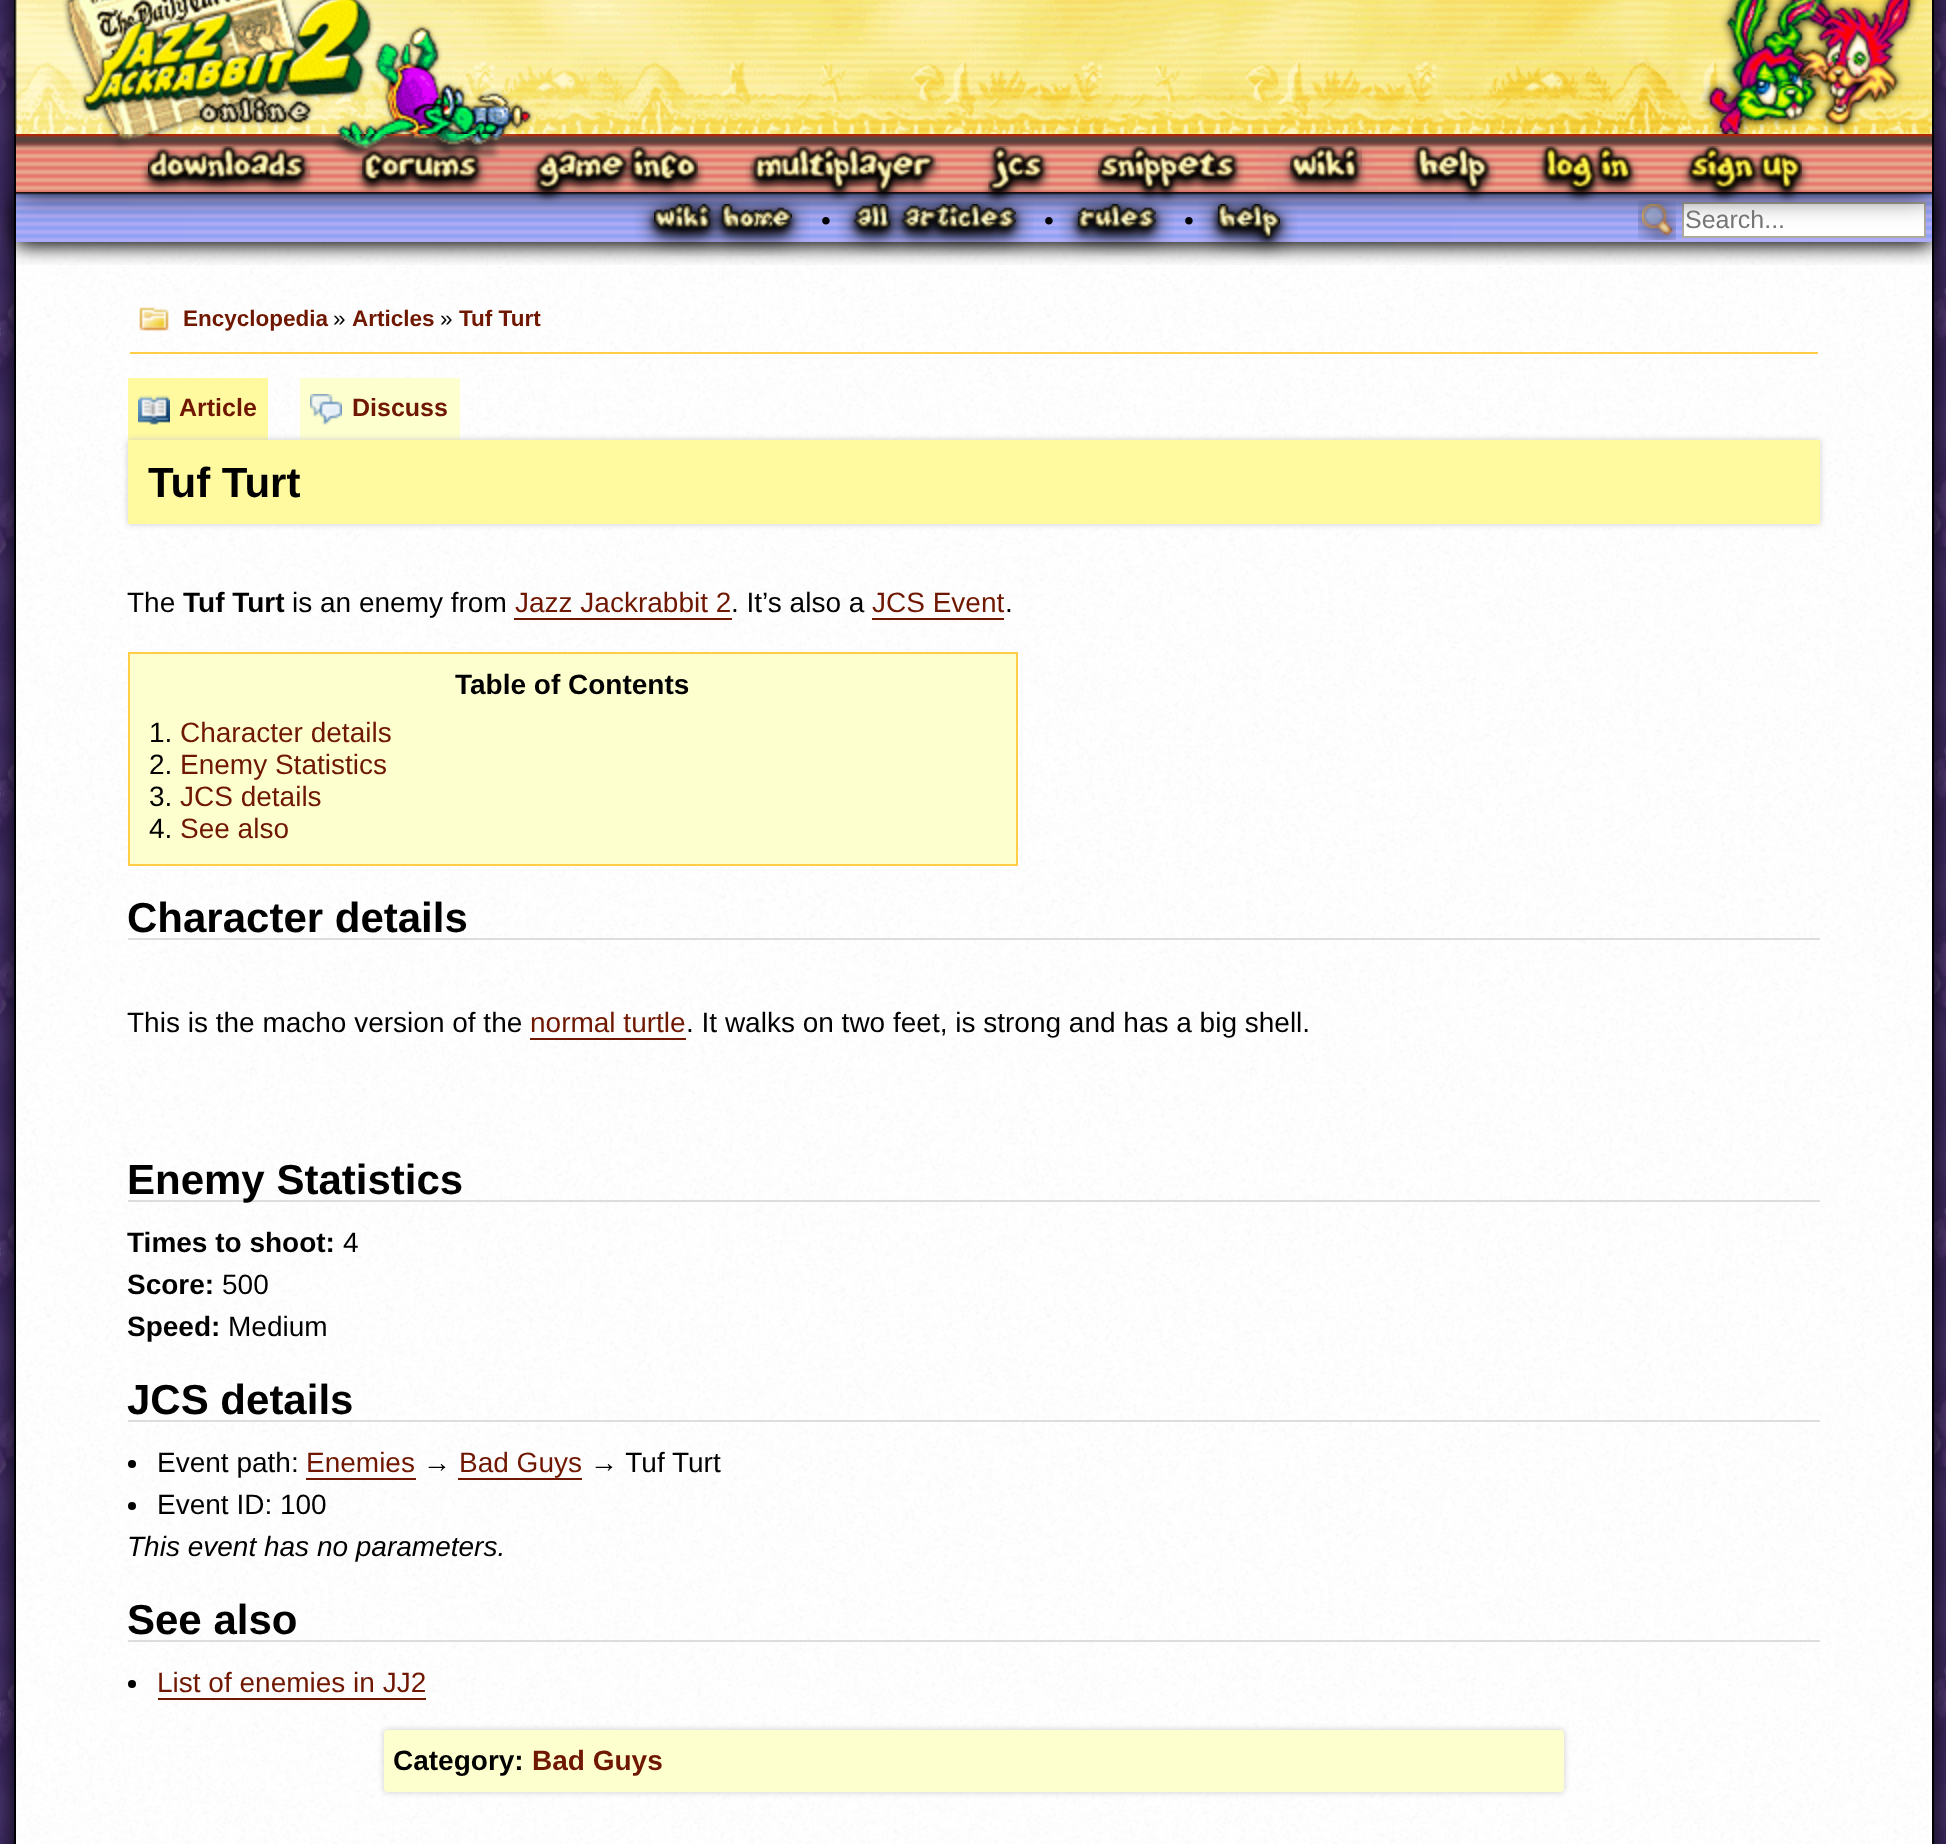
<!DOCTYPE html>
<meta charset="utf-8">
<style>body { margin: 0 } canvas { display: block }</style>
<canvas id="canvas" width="1946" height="1844"></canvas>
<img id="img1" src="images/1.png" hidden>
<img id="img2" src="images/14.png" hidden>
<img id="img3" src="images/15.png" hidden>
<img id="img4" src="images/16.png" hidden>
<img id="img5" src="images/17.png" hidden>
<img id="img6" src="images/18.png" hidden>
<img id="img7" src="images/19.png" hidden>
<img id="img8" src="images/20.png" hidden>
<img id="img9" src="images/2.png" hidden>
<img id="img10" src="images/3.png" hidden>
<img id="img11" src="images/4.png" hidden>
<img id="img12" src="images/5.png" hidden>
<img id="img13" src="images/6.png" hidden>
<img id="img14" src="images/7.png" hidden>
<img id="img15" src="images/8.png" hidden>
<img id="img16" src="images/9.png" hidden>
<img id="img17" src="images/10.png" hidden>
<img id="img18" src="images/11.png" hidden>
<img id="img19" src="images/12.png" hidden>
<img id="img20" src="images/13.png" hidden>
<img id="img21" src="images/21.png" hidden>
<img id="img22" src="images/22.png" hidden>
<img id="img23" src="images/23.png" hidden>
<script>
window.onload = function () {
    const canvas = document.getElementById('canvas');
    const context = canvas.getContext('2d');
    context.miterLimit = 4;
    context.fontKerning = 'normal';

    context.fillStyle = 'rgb(255, 255, 255)';
    context.fillRect(0, 0, 1946, 1844);
    context.drawImage(document.getElementById('img1'), 0, 0, 1946, 1844);
    context.fillStyle = 'rgb(0, 0, 0)';
    context.filter = 'blur(15px)';
    context.beginPath();
    context.rect(14, 192, 1920, 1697);
    context.fill();
    context.filter = 'none';
    context.fillRect(1932, 192, 2, 1652);
    context.fillRect(14, 192, 2, 1652);
    context.drawImage(document.getElementById('img2'), 16, 242, 1916, 1602);
    context.drawImage(document.getElementById('img3'), 0, 178, 1946, 87);
    context.drawImage(document.getElementById('img4'), 635, 193, 175, 63);
    context.drawImage(document.getElementById('img5'), 837, 193, 197, 63);
    context.drawImage(document.getElementById('img6'), 1059, 194, 115, 62);
    context.drawImage(document.getElementById('img7'), 1198, 194, 100, 66);
    context.drawImage(document.getElementById('img8'), 1638, 200, 38, 40);
    context.fillStyle = 'rgb(255, 255, 255)';
    context.beginPath();
    context.rect(1683, 203, 242, 34);
    context.fill();
    context.strokeStyle = 'rgb(173, 169, 159)';
    context.lineWidth = 2;
    context.stroke();
    context.save();
    context.beginPath();
    context.moveTo(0, 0);
    context.lineTo(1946, 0);
    context.lineTo(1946, 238);
    context.lineTo(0, 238);
    context.closePath();
    context.moveTo(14, -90);
    context.lineTo(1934, -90);
    context.lineTo(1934, 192);
    context.lineTo(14, 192);
    context.closePath();
    context.clip('evenodd');
    context.fillStyle = 'rgb(0, 0, 0)';
    context.filter = 'blur(15px)';
    context.beginPath();
    context.rect(14, -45, 1920, 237);
    context.fill();
    context.filter = 'none';
    context.restore();
    context.fillStyle = 'rgb(0, 0, 0)';
    context.fillRect(1932, 0, 2, 192);
    context.drawImage(document.getElementById('img9'), 14, 0, 1918, 134);
    context.drawImage(document.getElementById('img10'), 16, 134, 1916, 58);
    context.fillRect(14, 134, 2, 58);
    context.drawImage(document.getElementById('img11'), 140, 146, 173, 46);
    context.drawImage(document.getElementById('img12'), 355, 148, 132, 44);
    context.drawImage(document.getElementById('img13'), 529, 146, 176, 58);
    context.drawImage(document.getElementById('img14'), 745, 146, 196, 58);
    context.drawImage(document.getElementById('img15'), 982, 146, 69, 59);
    context.drawImage(document.getElementById('img16'), 1091, 146, 153, 57);
    context.drawImage(document.getElementById('img17'), 1283, 145, 83, 47);
    context.drawImage(document.getElementById('img18'), 1408, 146, 88, 57);
    context.drawImage(document.getElementById('img19'), 1536, 146, 103, 58);
    context.drawImage(document.getElementById('img20'), 1681, 146, 128, 57);
    context.drawImage(document.getElementById('img21'), 139, 307, 30, 24);
    context.fillStyle = 'rgb(255, 205, 71)';
    context.fillRect(130, 352, 1688, 2);
    context.fillStyle = 'rgb(255, 249, 160)';
    context.fillRect(128, 378, 140, 62);
    context.drawImage(document.getElementById('img22'), 138, 395, 32, 30);
    context.fillStyle = 'rgb(254, 255, 207)';
    context.fillRect(300, 378, 160, 62);
    context.drawImage(document.getElementById('img23'), 310, 394, 32, 31);
    context.fillStyle = 'rgb(204, 204, 204)';
    context.filter = 'blur(3px)';
    context.beginPath();
    context.rect(128, 440, 1692, 84);
    context.fill();
    context.filter = 'none';
    context.fillStyle = 'rgb(255, 249, 160)';
    context.fillRect(128, 440, 1692, 84);
    context.fillStyle = 'rgb(111, 23, 0)';
    context.fillRect(514, 618, 218, 2);
    context.fillRect(872, 618, 132, 2);
    context.fillStyle = 'rgb(254, 255, 207)';
    context.beginPath();
    context.rect(129, 653, 888, 212);
    context.fill();
    context.strokeStyle = 'rgb(255, 205, 71)';
    context.stroke();
    context.fillStyle = 'rgb(221, 221, 221)';
    context.fillRect(128, 938, 1692, 2);
    context.fillStyle = 'rgb(111, 23, 0)';
    context.fillRect(530, 1038, 156, 2);
    context.fillStyle = 'rgb(221, 221, 221)';
    context.fillRect(128, 1200, 1692, 2);
    context.fillRect(128, 1420, 1692, 2);
    context.fillStyle = 'rgb(0, 0, 0)';
    context.beginPath();
    context.arc(132, 1464, 4, 0, 2 * Math.PI);
    context.fill();
    context.fillStyle = 'rgb(111, 23, 0)';
    context.fillRect(306, 1478, 110, 2);
    context.fillRect(458, 1478, 124, 2);
    context.fillStyle = 'rgb(0, 0, 0)';
    context.beginPath();
    context.arc(132, 1506, 4, 0, 2 * Math.PI);
    context.fill();
    context.fillStyle = 'rgb(221, 221, 221)';
    context.fillRect(128, 1640, 1692, 2);
    context.fillStyle = 'rgb(0, 0, 0)';
    context.beginPath();
    context.arc(132, 1684, 4, 0, 2 * Math.PI);
    context.fill();
    context.fillStyle = 'rgb(111, 23, 0)';
    context.fillRect(158, 1698, 268, 2);
    context.fillStyle = 'rgb(204, 204, 204)';
    context.filter = 'blur(3px)';
    context.beginPath();
    context.roundRect(384, 1730, 1180, 62, 4);
    context.fill();
    context.filter = 'none';
    context.fillStyle = 'rgb(254, 255, 207)';
    context.beginPath();
    context.roundRect(384, 1730, 1180, 62, 4);
    context.fill();
    context.font = '28px Liberation Sans';
    context.fillStyle = 'rgb(0, 0, 0)';
    context.fillText('•', 821, 230);
    context.fillText('•', 1044, 230);
    context.fillText('•', 1184, 230);
    context.font = '25px Liberation Sans';
    context.fillStyle = 'rgb(117, 117, 117)';
    context.fillText('Search...', 1685, 228);
    context.font = 'bold 22.5px Liberation Sans';
    context.fillStyle = 'rgb(111, 23, 0)';
    context.fillText('Encyclopedia', 183, 326);
    context.font = '22.5px Liberation Sans';
    context.fillStyle = 'rgb(0, 0, 0)';
    context.fillText('»', 333, 326);
    context.font = 'bold 22.5px Liberation Sans';
    context.fillStyle = 'rgb(111, 23, 0)';
    context.fillText('Articles', 352, 326);
    context.font = '22.5px Liberation Sans';
    context.fillStyle = 'rgb(0, 0, 0)';
    context.fillText('»', 440, 326);
    context.font = 'bold 22.5px Liberation Sans';
    context.fillStyle = 'rgb(111, 23, 0)';
    context.fillText('Tuf Turt', 459, 326);
    context.font = 'bold 25px Liberation Sans';
    context.fillText('Article', 179, 416);
    context.fillText('Discuss', 352, 416);
    context.font = 'bold 42px Liberation Sans';
    context.fillStyle = 'rgb(0, 0, 0)';
    context.fillText('Tuf Turt', 148, 497);
    context.font = '28px Liberation Sans';
    context.fillText('The', 127, 612);
    context.font = 'bold 28px Liberation Sans';
    context.fillText('Tuf Turt', 183, 612);
    context.font = '28px Liberation Sans';
    context.fillText('is an enemy from', 292, 612);
    context.fillStyle = 'rgb(111, 23, 0)';
    context.fillText('Jazz Jackrabbit 2', 515, 612);
    context.fillStyle = 'rgb(0, 0, 0)';
    context.fillText('. It’s also a', 731, 612);
    context.fillStyle = 'rgb(111, 23, 0)';
    context.fillText('JCS Event', 872, 612);
    context.fillStyle = 'rgb(0, 0, 0)';
    context.fillText('.', 1005, 612);
    context.font = 'bold 28px Liberation Sans';
    context.fillText('Table of Contents', 455, 694);
    context.font = '28px Liberation Sans';
    context.fillText('1.', 149, 742);
    context.fillStyle = 'rgb(111, 23, 0)';
    context.fillText('Character details', 180, 742);
    context.fillStyle = 'rgb(0, 0, 0)';
    context.fillText('2.', 149, 774);
    context.fillStyle = 'rgb(111, 23, 0)';
    context.fillText('Enemy Statistics', 180, 774);
    context.fillStyle = 'rgb(0, 0, 0)';
    context.fillText('3.', 149, 806);
    context.fillStyle = 'rgb(111, 23, 0)';
    context.fillText('JCS details', 180, 806);
    context.fillStyle = 'rgb(0, 0, 0)';
    context.fillText('4.', 149, 838);
    context.fillStyle = 'rgb(111, 23, 0)';
    context.fillText('See also', 180, 838);
    context.font = 'bold 42px Liberation Sans';
    context.fillStyle = 'rgb(0, 0, 0)';
    context.fillText('Character details', 127, 932);
    context.font = '28px Liberation Sans';
    context.fillText('This is the macho version of the', 127, 1032);
    context.fillStyle = 'rgb(111, 23, 0)';
    context.fillText('normal turtle', 530, 1032);
    context.fillStyle = 'rgb(0, 0, 0)';
    context.fillText('. It walks on two feet, is strong and has a big shell.', 686, 1032);
    context.font = 'bold 42px Liberation Sans';
    context.fillText('Enemy Statistics', 127, 1194);
    context.font = 'bold 28px Liberation Sans';
    context.fillText('Times to shoot:', 127, 1252);
    context.font = '28px Liberation Sans';
    context.fillText('4', 343, 1252);
    context.font = 'bold 28px Liberation Sans';
    context.fillText('Score:', 127, 1294);
    context.font = '28px Liberation Sans';
    context.fillText('500', 222, 1294);
    context.font = 'bold 28px Liberation Sans';
    context.fillText('Speed:', 127, 1336);
    context.font = '28px Liberation Sans';
    context.fillText('Medium', 228, 1336);
    context.font = 'bold 42px Liberation Sans';
    context.fillText('JCS details', 127, 1414);
    context.font = '28px Liberation Sans';
    context.fillText('Event path:', 157, 1472);
    context.fillStyle = 'rgb(111, 23, 0)';
    context.fillText('Enemies', 306, 1472);
    context.fillStyle = 'rgb(0, 0, 0)';
    context.fillText('→', 423, 1472);
    context.fillStyle = 'rgb(111, 23, 0)';
    context.fillText('Bad Guys', 459, 1472);
    context.fillStyle = 'rgb(0, 0, 0)';
    context.fillText('→ Tuf Turt', 590, 1472);
    context.fillText('Event ID: 100', 157, 1514);
    context.font = 'italic 28px Liberation Sans';
    context.fillText('This event has no parameters.', 127, 1556);
    context.font = 'bold 42px Liberation Sans';
    context.fillText('See also', 127, 1634);
    context.font = '28px Liberation Sans';
    context.fillStyle = 'rgb(111, 23, 0)';
    context.fillText('List of enemies in JJ2', 157, 1692);
    context.font = 'bold 28px Liberation Sans';
    context.fillStyle = 'rgb(0, 0, 0)';
    context.fillText('Category:', 393, 1770);
    context.fillStyle = 'rgb(111, 23, 0)';
    context.fillText('Bad Guys', 532, 1770);
};
</script>
